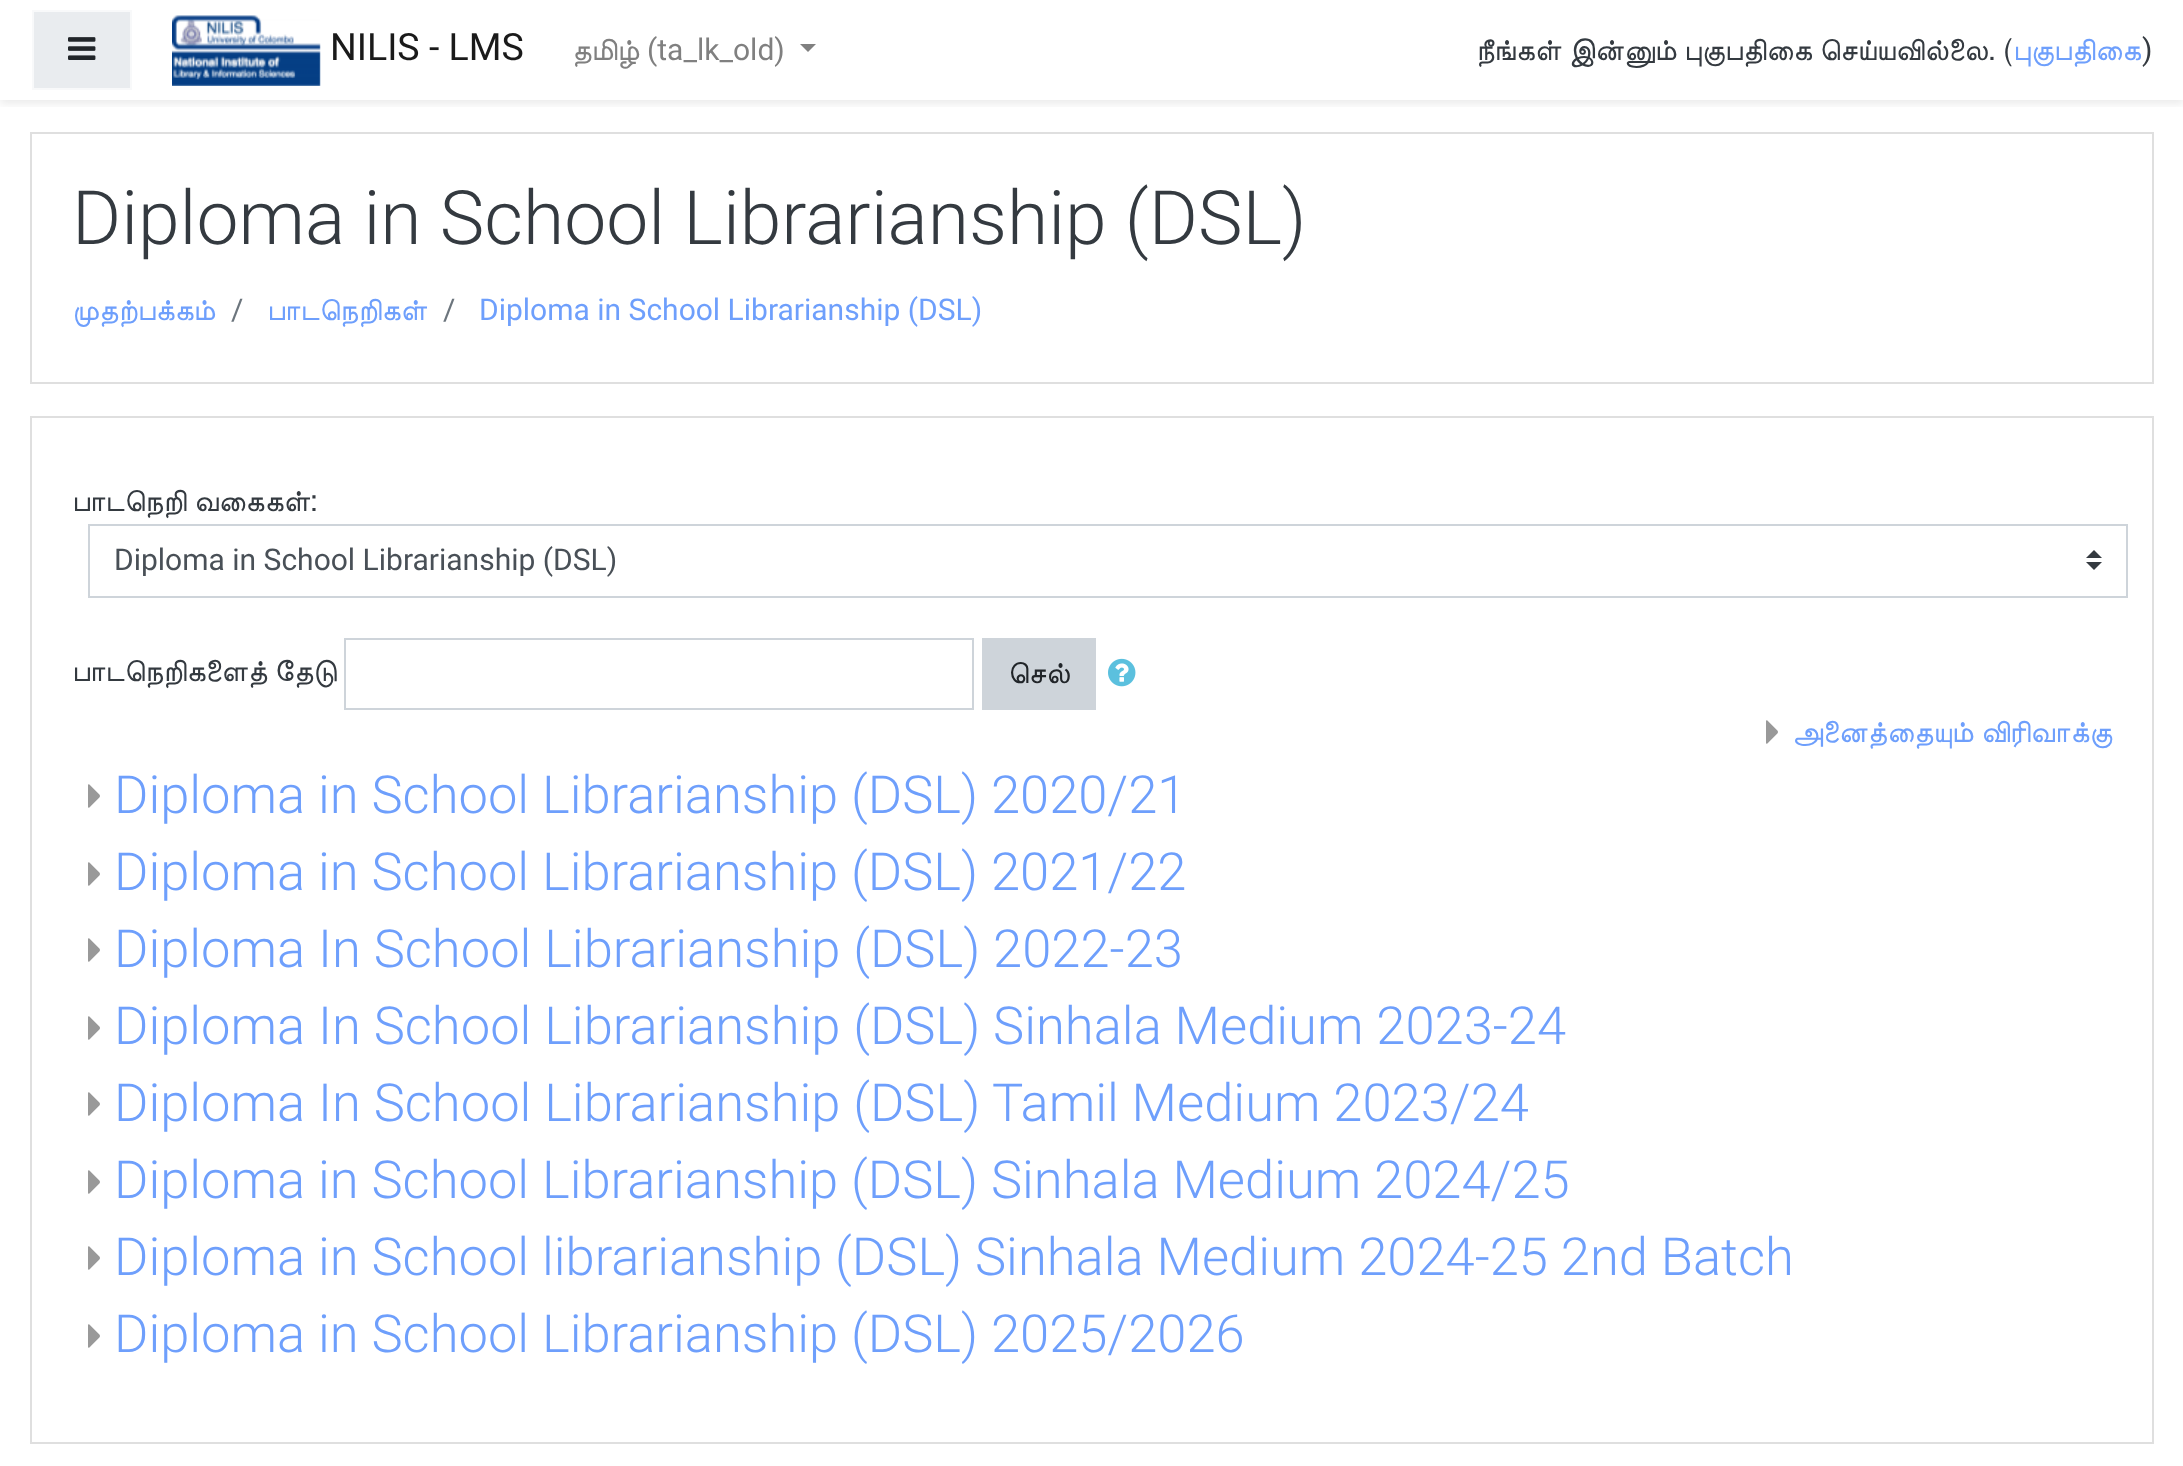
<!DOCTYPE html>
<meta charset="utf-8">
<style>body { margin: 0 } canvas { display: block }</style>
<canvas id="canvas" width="2183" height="1466"></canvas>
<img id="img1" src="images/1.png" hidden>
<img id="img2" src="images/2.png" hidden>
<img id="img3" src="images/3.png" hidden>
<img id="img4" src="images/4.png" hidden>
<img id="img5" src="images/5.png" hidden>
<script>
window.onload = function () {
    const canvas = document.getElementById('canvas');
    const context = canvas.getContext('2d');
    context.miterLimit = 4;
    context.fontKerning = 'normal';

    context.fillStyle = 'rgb(255, 255, 255)';
    context.fillRect(0, 0, 2183, 1466);
    context.save();
    context.beginPath();
    context.rect(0, 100, 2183, 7);
    context.clip();
    context.fillStyle = 'rgba(0, 0, 0, 0.08)';
    context.filter = 'blur(4px)';
    context.beginPath();
    context.rect(0, 4, 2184, 100);
    context.fill();
    context.filter = 'none';
    context.restore();
    context.fillStyle = 'rgb(233, 236, 239)';
    context.beginPath();
    context.rect(33, 11, 98, 78);
    context.fill();
    context.strokeStyle = 'rgb(248, 249, 250)';
    context.lineWidth = 2;
    context.stroke();
    context.drawImage(document.getElementById('img1'), 68, 37, 28, 23);
    context.drawImage(document.getElementById('img2'), 172, 15, 149, 71);
    context.fillStyle = 'rgb(128, 128, 128)';
    context.beginPath();
    context.moveTo(800, 44);
    context.lineTo(816, 44);
    context.lineTo(808, 52);
    context.closePath();
    context.fill();
    context.strokeStyle = 'rgb(223, 223, 223)';
    context.strokeRect(31, 133, 2122, 250);
    context.strokeRect(31, 417, 2122, 1026);
    context.fillStyle = 'rgb(52, 58, 64)';
    context.beginPath();
    context.moveTo(2094, 550);
    context.lineTo(2086, 558);
    context.lineTo(2102, 558);
    context.closePath();
    context.moveTo(2094, 570);
    context.lineTo(2086, 562);
    context.lineTo(2102, 562);
    context.closePath();
    context.fill();
    context.strokeStyle = 'rgb(206, 212, 218)';
    context.strokeRect(89, 525, 2038, 72);
    context.strokeRect(345, 639, 628, 70);
    context.fillStyle = 'rgb(206, 212, 218)';
    context.fillRect(982, 638, 114, 72);
    context.drawImage(document.getElementById('img3'), 1108, 658, 28, 29);
    context.drawImage(document.getElementById('img4'), 1766, 720, 12, 24);
    context.drawImage(document.getElementById('img4'), 88, 784, 12, 24);
    context.drawImage(document.getElementById('img4'), 88, 862, 12, 24);
    context.drawImage(document.getElementById('img4'), 88, 938, 12, 24);
    context.drawImage(document.getElementById('img5'), 88, 1016, 12, 24);
    context.drawImage(document.getElementById('img4'), 88, 1092, 12, 24);
    context.drawImage(document.getElementById('img4'), 88, 1170, 12, 24);
    context.drawImage(document.getElementById('img4'), 88, 1246, 12, 24);
    context.drawImage(document.getElementById('img4'), 88, 1324, 12, 24);
    context.font = '37.5px Roboto';
    context.fillStyle = 'rgb(26, 26, 26)';
    context.fillText('NILIS - LMS', 330, 60);
    context.font = '30px FreeSans';
    context.fillStyle = 'rgb(128, 128, 128)';
    context.fillText('தமிழ் ', 572, 60);
    context.font = '30px Roboto';
    context.fillText('(ta_lk_old)', 647, 60);
    context.font = '30px FreeSans';
    context.fillStyle = 'rgb(52, 58, 64)';
    context.fillText('நீங்கள் இன்னும் புகுபதிகை செய்யவில்லை. (', 1476, 60);
    context.fillStyle = 'rgb(110, 159, 252)';
    context.fillText('புகுபதிகை', 2013, 60);
    context.font = '30px Roboto';
    context.fillStyle = 'rgb(52, 58, 64)';
    context.fillText(')', 2142, 60);
    context.font = '300 75px Roboto';
    context.fillText('Diploma in School Librarianship (DSL)', 72, 244);
    context.font = '30px FreeSans';
    context.fillStyle = 'rgb(110, 159, 252)';
    context.fillText('முதற்பக்கம்', 72, 320);
    context.font = '30px Roboto';
    context.fillStyle = 'rgb(108, 117, 125)';
    context.fillText('/', 231, 320);
    context.font = '30px FreeSans';
    context.fillStyle = 'rgb(110, 159, 252)';
    context.fillText('பாடநெறிகள்', 267, 320);
    context.font = '30px Roboto';
    context.fillStyle = 'rgb(108, 117, 125)';
    context.fillText('/', 443, 320);
    context.fillStyle = 'rgb(110, 159, 252)';
    context.fillText('Diploma in School Librarianship (DSL)', 479, 320);
    context.font = '30px FreeSans';
    context.fillStyle = 'rgb(52, 58, 64)';
    context.fillText('பாடநெறி வகைகள்:', 72, 511);
    context.font = '30px Roboto';
    context.fillStyle = 'rgb(73, 80, 87)';
    context.fillText('Diploma in School Librarianship (DSL)', 114, 570);
    context.font = '30px FreeSans';
    context.fillStyle = 'rgb(52, 58, 64)';
    context.fillText('பாடநெறிகளைத் தேடு', 72, 681);
    context.fillStyle = 'rgb(33, 37, 41)';
    context.fillText('செல்', 1008, 683);
    context.fillStyle = 'rgb(110, 159, 252)';
    context.fillText('அனைத்தையும் விரிவாக்கு', 1792, 742);
    context.font = '300 52.5px Roboto';
    context.fillText('Diploma in School Librarianship (DSL) 2020/21', 114, 813);
    context.fillText('Diploma in School Librarianship (DSL) 2021/22', 114, 890);
    context.fillText('Diploma In School Librarianship (DSL) 2022-23', 114, 967);
    context.fillText('Diploma In School Librarianship (DSL) Sinhala Medium 2023-24', 114, 1044);
    context.fillText('Diploma In School Librarianship (DSL) Tamil Medium 2023/24', 114, 1121);
    context.fillText('Diploma in School Librarianship (DSL) Sinhala Medium 2024/25', 114, 1198);
    context.fillText('Diploma in School librarianship (DSL) Sinhala Medium 2024-25 2nd Batch', 114, 1275);
    context.fillText('Diploma in School Librarianship (DSL) 2025/2026', 114, 1352);
};
</script>
